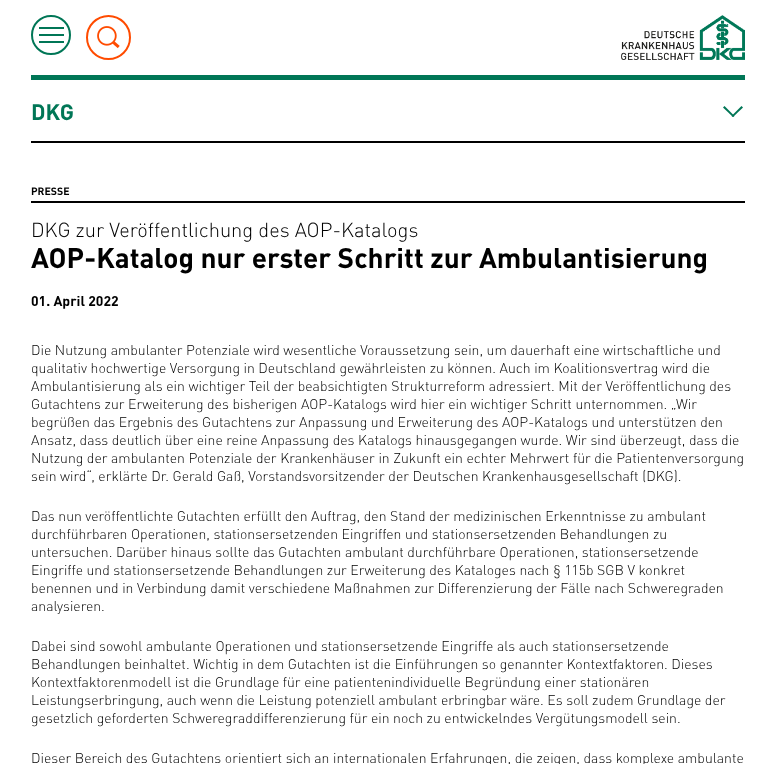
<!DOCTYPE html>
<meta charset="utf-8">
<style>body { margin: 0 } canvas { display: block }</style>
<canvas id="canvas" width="776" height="764"></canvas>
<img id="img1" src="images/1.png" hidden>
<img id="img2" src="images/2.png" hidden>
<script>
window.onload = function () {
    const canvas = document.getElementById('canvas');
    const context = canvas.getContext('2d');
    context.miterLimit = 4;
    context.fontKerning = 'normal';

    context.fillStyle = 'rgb(255, 255, 255)';
    context.fillRect(0, 0, 776, 764);
    context.beginPath();
    context.arc(51, 35, 19, 0, 2 * Math.PI);
    context.strokeStyle = 'rgb(0, 118, 86)';
    context.lineWidth = 2;
    context.stroke();
    context.fillStyle = 'rgb(0, 118, 86)';
    context.fillRect(39, 27, 25, 2);
    context.fillRect(39, 34, 25, 2);
    context.fillRect(39, 41, 25, 2);
    context.drawImage(document.getElementById('img1'), 97, 26, 23, 23);
    context.beginPath();
    context.arc(108.5, 37.5, 21.5, 0, 2 * Math.PI);
    context.strokeStyle = 'rgb(255, 75, 0)';
    context.stroke();
    context.drawImage(document.getElementById('img2'), 621, 15, 124, 45);
    context.fillRect(31, 75, 714, 5);
    context.fillStyle = 'rgb(0, 0, 0)';
    context.fillRect(31, 141, 714, 2);
    context.fillStyle = 'rgb(0, 118, 86)';
    context.beginPath();
    context.moveTo(741.5, 106);
    context.lineTo(743, 107.5);
    context.lineTo(733, 117);
    context.lineTo(731.5, 116);
    context.closePath();
    context.fill();
    context.beginPath();
    context.moveTo(724.5, 106);
    context.lineTo(734.5, 116);
    context.lineTo(733, 117);
    context.lineTo(723, 107.5);
    context.closePath();
    context.fill();
    context.fillStyle = 'rgb(0, 0, 0)';
    context.fillRect(31, 201, 714, 2);
    context.font = 'bold 22px DIN';
    context.fillStyle = 'rgb(0, 118, 86)';
    context.fillText('DKG', 31, 120);
    context.font = 'bold 10.5px DIN';
    context.fillStyle = 'rgb(0, 0, 0)';
    context.fillText('PRESSE', 31, 195);
    context.font = '300 20.1px DIN';
    context.fillText('DKG zur Veröffentlichung des AOP-Katalogs', 31, 237);
    context.font = 'bold 28px DIN';
    context.fillText('AOP-Katalog nur erster Schritt zur Ambulantisierung', 31, 268);
    context.font = 'bold 14px DIN';
    context.fillText('01. April 2022', 31, 306);
    context.font = '300 14px DIN';
    context.fillText('Die Nutzung ambulanter Potenziale wird wesentliche Voraussetzung sein, um dauerhaft eine wirtschaftliche und', 31, 355);
    context.fillText('qualitativ hochwertige Versorgung in Deutschland gewährleisten zu können. Auch im Koalitionsvertrag wird die', 31, 373);
    context.fillText('Ambulantisierung als ein wichtiger Teil der beabsichtigten Strukturreform adressiert. Mit der Veröffentlichung des', 31, 391);
    context.fillText('Gutachtens zur Erweiterung des bisherigen AOP-Katalogs wird hier ein wichtiger Schritt unternommen. „Wir', 31, 409);
    context.fillText('begrüßen das Ergebnis des Gutachtens zur Anpassung und Erweiterung des AOP-Katalogs und unterstützen den', 31, 427);
    context.fillText('Ansatz, dass deutlich über eine reine Anpassung des Katalogs hinausgegangen wurde. Wir sind überzeugt, dass die', 31, 445);
    context.fillText('Nutzung der ambulanten Potenziale der Krankenhäuser in Zukunft ein echter Mehrwert für die Patientenversorgung', 31, 463);
    context.fillText('sein wird“, erklärte Dr. Gerald Gaß, Vorstandsvorsitzender der Deutschen Krankenhausgesellschaft (DKG).', 31, 481);
    context.fillText('Das nun veröffentlichte Gutachten erfüllt den Auftrag, den Stand der medizinischen Erkenntnisse zu ambulant', 31, 521);
    context.fillText('durchführbaren Operationen, stationsersetzenden Eingriffen und stationsersetzenden Behandlungen zu', 31, 539);
    context.fillText('untersuchen. Darüber hinaus sollte das Gutachten ambulant durchführbare Operationen, stationsersetzende', 31, 557);
    context.fillText('Eingriffe und stationsersetzende Behandlungen zur Erweiterung des Kataloges nach § 115b SGB V konkret', 31, 575);
    context.fillText('benennen und in Verbindung damit verschiedene Maßnahmen zur Differenzierung der Fälle nach Schweregraden', 31, 593);
    context.fillText('analysieren.', 31, 611);
    context.fillText('Dabei sind sowohl ambulante Operationen und stationsersetzende Eingriffe als auch stationsersetzende', 31, 651);
    context.fillText('Behandlungen beinhaltet. Wichtig in dem Gutachten ist die Einführungen so genannter Kontextfaktoren. Dieses', 31, 669);
    context.fillText('Kontextfaktorenmodell ist die Grundlage für eine patientenindividuelle Begründung einer stationären', 31, 687);
    context.fillText('Leistungserbringung, auch wenn die Leistung potenziell ambulant erbringbar wäre. Es soll zudem Grundlage der', 31, 705);
    context.fillText('gesetzlich geforderten Schweregraddifferenzierung für ein noch zu entwickelndes Vergütungsmodell sein.', 31, 723);
    context.fillText('Dieser Bereich des Gutachtens orientiert sich an internationalen Erfahrungen, die zeigen, dass komplexe ambulante', 31, 763);
};
</script>
